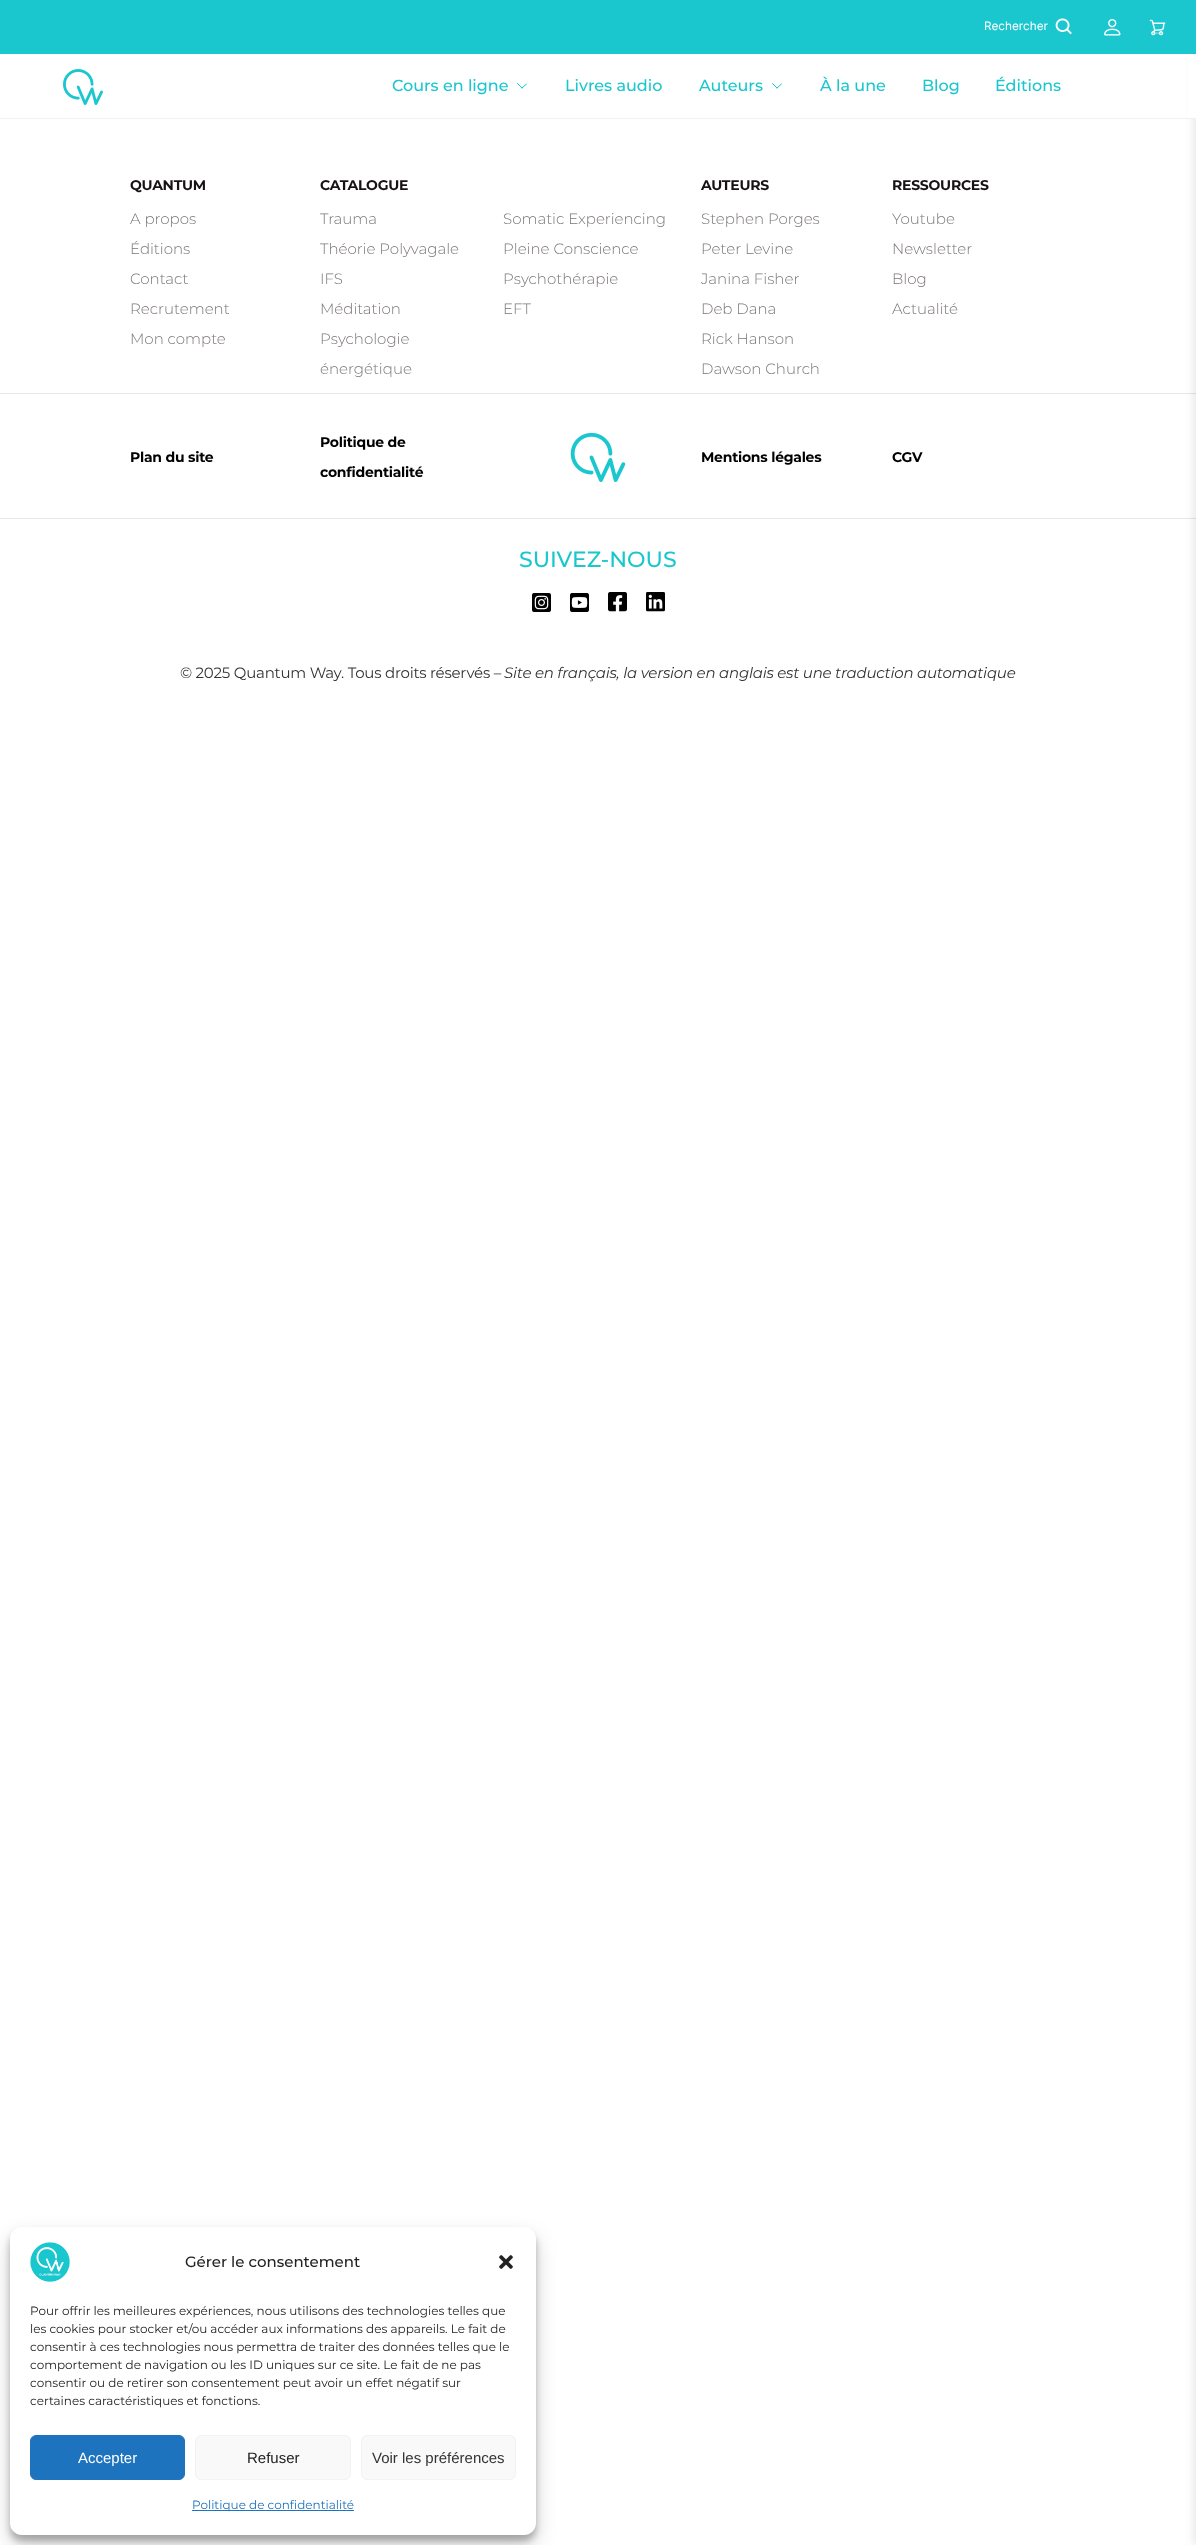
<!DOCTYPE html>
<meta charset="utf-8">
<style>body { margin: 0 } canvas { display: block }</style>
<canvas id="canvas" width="1196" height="2545"></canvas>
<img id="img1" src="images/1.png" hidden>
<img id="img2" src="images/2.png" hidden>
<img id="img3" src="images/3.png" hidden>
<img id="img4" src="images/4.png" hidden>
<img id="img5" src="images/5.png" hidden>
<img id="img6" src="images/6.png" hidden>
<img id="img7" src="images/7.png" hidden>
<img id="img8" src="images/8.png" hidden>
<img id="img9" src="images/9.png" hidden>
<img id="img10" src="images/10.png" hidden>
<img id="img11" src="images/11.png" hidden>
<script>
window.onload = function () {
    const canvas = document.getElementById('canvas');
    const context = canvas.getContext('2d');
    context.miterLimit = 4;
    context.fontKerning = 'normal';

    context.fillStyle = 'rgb(255, 255, 255)';
    context.fillRect(0, 0, 1196, 2545);
    context.fillStyle = 'rgb(230, 230, 230)';
    context.fillRect(0, 393, 1196, 1);
    context.fillRect(0, 518, 1196, 1);
    context.fillStyle = 'rgba(0, 0, 0, 0.1)';
    context.filter = 'blur(5px)';
    context.beginPath();
    context.rect(1194, 0, 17, 2545);
    context.fill();
    context.filter = 'none';
    context.fillStyle = 'rgb(255, 255, 255)';
    context.fillRect(1188, 54, 8, 64);
    context.fillStyle = 'rgb(240, 241, 242)';
    context.fillRect(0, 118, 1196, 1);
    context.fillStyle = 'rgb(26, 199, 206)';
    context.fillRect(0, 0, 1196, 54);
    context.drawImage(document.getElementById('img1'), 1055, 18, 17, 17);
    context.drawImage(document.getElementById('img2'), 1104, 19, 17, 17);
    context.drawImage(document.getElementById('img3'), 1149, 19, 17, 17);
    context.drawImage(document.getElementById('img4'), 63, 69, 40, 36);
    context.beginPath();
    context.moveTo(522, 88);
    context.lineTo(517.5, 83.5);
    context.moveTo(526.5, 84);
    context.lineTo(522, 88);
    context.strokeStyle = 'rgb(26, 199, 206)';
    context.lineCap = 'round';
    context.lineJoin = 'round';
    context.stroke();
    context.beginPath();
    context.moveTo(777, 88);
    context.lineTo(772.5, 83.5);
    context.moveTo(781.5, 84);
    context.lineTo(777, 88);
    context.stroke();
    context.drawImage(document.getElementById('img5'), 570, 432, 56, 50);
    context.drawImage(document.getElementById('img6'), 532, 593, 19, 19);
    context.drawImage(document.getElementById('img7'), 570, 593, 19, 19);
    context.drawImage(document.getElementById('img8'), 608, 592, 19, 20);
    context.drawImage(document.getElementById('img9'), 646, 592, 19, 20);
    context.fillStyle = 'rgba(0, 0, 0, 0.23)';
    context.filter = 'blur(3px)';
    context.beginPath();
    context.roundRect(10, 2233, 526, 308, 12);
    context.fill();
    context.filter = 'none';
    context.fillStyle = 'rgba(0, 0, 0, 0.19)';
    context.filter = 'blur(10px)';
    context.beginPath();
    context.roundRect(10, 2237, 526, 308, 12);
    context.fill();
    context.filter = 'none';
    context.fillStyle = 'rgb(255, 255, 255)';
    context.beginPath();
    context.roundRect(10, 2227, 526, 308, 12);
    context.fill();
    context.drawImage(document.getElementById('img10'), 30, 2242, 40, 40);
    context.drawImage(document.getElementById('img11'), 499, 2255, 14, 14);
    context.fillStyle = 'rgb(30, 115, 190)';
    context.beginPath();
    context.roundRect(30.5, 2435.5, 154, 44, 5.5);
    context.fill();
    context.strokeStyle = 'rgb(30, 115, 190)';
    context.lineJoin = 'miter';
    context.stroke();
    context.fillStyle = 'rgb(249, 249, 249)';
    context.beginPath();
    context.roundRect(195.5, 2435.5, 155, 44, 5.5);
    context.fill();
    context.strokeStyle = 'rgb(242, 242, 242)';
    context.stroke();
    context.beginPath();
    context.roundRect(361.5, 2435.5, 154, 44, 5.5);
    context.fill();
    context.stroke();
    context.fillStyle = 'rgb(30, 115, 190)';
    context.fillRect(192, 2510, 162, 1);
    context.font = '11.75px Inter';
    context.fillStyle = 'rgb(255, 255, 255)';
    context.fillText('Rechercher', 984, 30);
    context.font = '500 16px Montserrat';
    context.fillStyle = 'rgb(26, 199, 206)';
    context.fillText('Cours en ligne', 392, 91);
    context.fillText('Livres audio', 565, 91);
    context.fillText('Auteurs', 699, 91);
    context.fillText('À la une', 820, 91);
    context.fillText('Blog', 922, 91);
    context.fillText('Éditions', 995, 91);
    context.letterSpacing = '-0.25px';
    context.font = 'bold 14px Montserrat';
    context.fillStyle = 'rgb(23, 18, 20)';
    context.fillText('QUANTUM', 130, 190);
    context.letterSpacing = '0px';
    context.font = '300 15px Montserrat';
    context.fillStyle = 'rgb(124, 118, 118)';
    context.fillText('A propos', 130, 224);
    context.fillText('Éditions', 130, 254);
    context.fillText('Contact', 130, 284);
    context.fillText('Recrutement', 130, 314);
    context.fillText('Mon compte', 130, 344);
    context.letterSpacing = '-0.25px';
    context.font = 'bold 14px Montserrat';
    context.fillStyle = 'rgb(23, 18, 20)';
    context.fillText('CATALOGUE', 320, 190);
    context.letterSpacing = '0px';
    context.font = '300 15px Montserrat';
    context.fillStyle = 'rgb(124, 118, 118)';
    context.fillText('Trauma', 320, 224);
    context.fillText('Somatic Experiencing', 503, 224);
    context.fillText('Théorie Polyvagale', 320, 254);
    context.fillText('Pleine Conscience', 503, 254);
    context.fillText('IFS', 320, 284);
    context.fillText('Psychothérapie', 503, 284);
    context.fillText('Méditation', 320, 314);
    context.fillText('EFT', 503, 314);
    context.fillText('Psychologie', 320, 344);
    context.fillText('énergétique', 320, 374);
    context.letterSpacing = '-0.25px';
    context.font = 'bold 14px Montserrat';
    context.fillStyle = 'rgb(23, 18, 20)';
    context.fillText('AUTEURS', 701, 190);
    context.letterSpacing = '0px';
    context.font = '300 15px Montserrat';
    context.fillStyle = 'rgb(124, 118, 118)';
    context.fillText('Stephen Porges', 701, 224);
    context.fillText('Peter Levine', 701, 254);
    context.fillText('Janina Fisher', 701, 284);
    context.fillText('Deb Dana', 701, 314);
    context.fillText('Rick Hanson', 701, 344);
    context.fillText('Dawson Church', 701, 374);
    context.letterSpacing = '-0.25px';
    context.font = 'bold 14px Montserrat';
    context.fillStyle = 'rgb(23, 18, 20)';
    context.fillText('RESSOURCES', 892, 190);
    context.letterSpacing = '0px';
    context.font = '300 15px Montserrat';
    context.fillStyle = 'rgb(124, 118, 118)';
    context.fillText('Youtube', 892, 224);
    context.fillText('Newsletter', 892, 254);
    context.fillText('Blog', 892, 284);
    context.fillText('Actualité', 892, 314);
    context.letterSpacing = '-0.25px';
    context.font = 'bold 14px Montserrat';
    context.fillStyle = 'rgb(0, 0, 0)';
    context.fillText('Plan du site', 130, 462);
    context.fillText('Politique de', 320, 447);
    context.fillText('confidentialité', 320, 477);
    context.fillText('Mentions légales', 701, 462);
    context.fillText('CGV', 892, 462);
    context.letterSpacing = '0px';
    context.font = '500 22px Montserrat';
    context.fillStyle = 'rgb(26, 199, 206)';
    context.fillText('SUIVEZ-NOUS', 519, 567);
    context.letterSpacing = '-0.23px';
    context.font = '15px Montserrat';
    context.fillStyle = 'rgb(51, 51, 51)';
    context.fillText('© 2025 Quantum Way. Tous droits réservés –', 180, 678);
    context.font = 'italic 15px Montserrat';
    context.fillText('Site en français, la version en anglais est une traduction automatique', 504, 678);
    context.letterSpacing = '0px';
    context.font = '500 15px Montserrat';
    context.fillStyle = 'rgb(34, 34, 34)';
    context.fillText('Gérer le consentement', 185, 2267);
    context.font = '12px Montserrat';
    context.fillText('Pour offrir les meilleures expériences, nous utilisons des technologies telles que', 30, 2315);
    context.fillText('les cookies pour stocker et/ou accéder aux informations des appareils. Le fait de', 30, 2333);
    context.fillText('consentir à ces technologies nous permettra de traiter des données telles que le', 30, 2351);
    context.fillText('comportement de navigation ou les ID uniques sur ce site. Le fait de ne pas', 30, 2369);
    context.fillText('consentir ou de retirer son consentement peut avoir un effet négatif sur', 30, 2387);
    context.fillText('certaines caractéristiques et fonctions.', 30, 2405);
    context.font = '15px Liberation Sans';
    context.fillStyle = 'rgb(255, 255, 255)';
    context.fillText('Accepter', 78, 2463);
    context.fillStyle = 'rgb(34, 34, 34)';
    context.fillText('Refuser', 247, 2463);
    context.fillStyle = 'rgb(51, 51, 51)';
    context.fillText('Voir les préférences', 372, 2463);
    context.font = '12px Montserrat';
    context.fillStyle = 'rgb(30, 115, 190)';
    context.fillText('Politique de confidentialité', 192, 2509);
};
</script>
